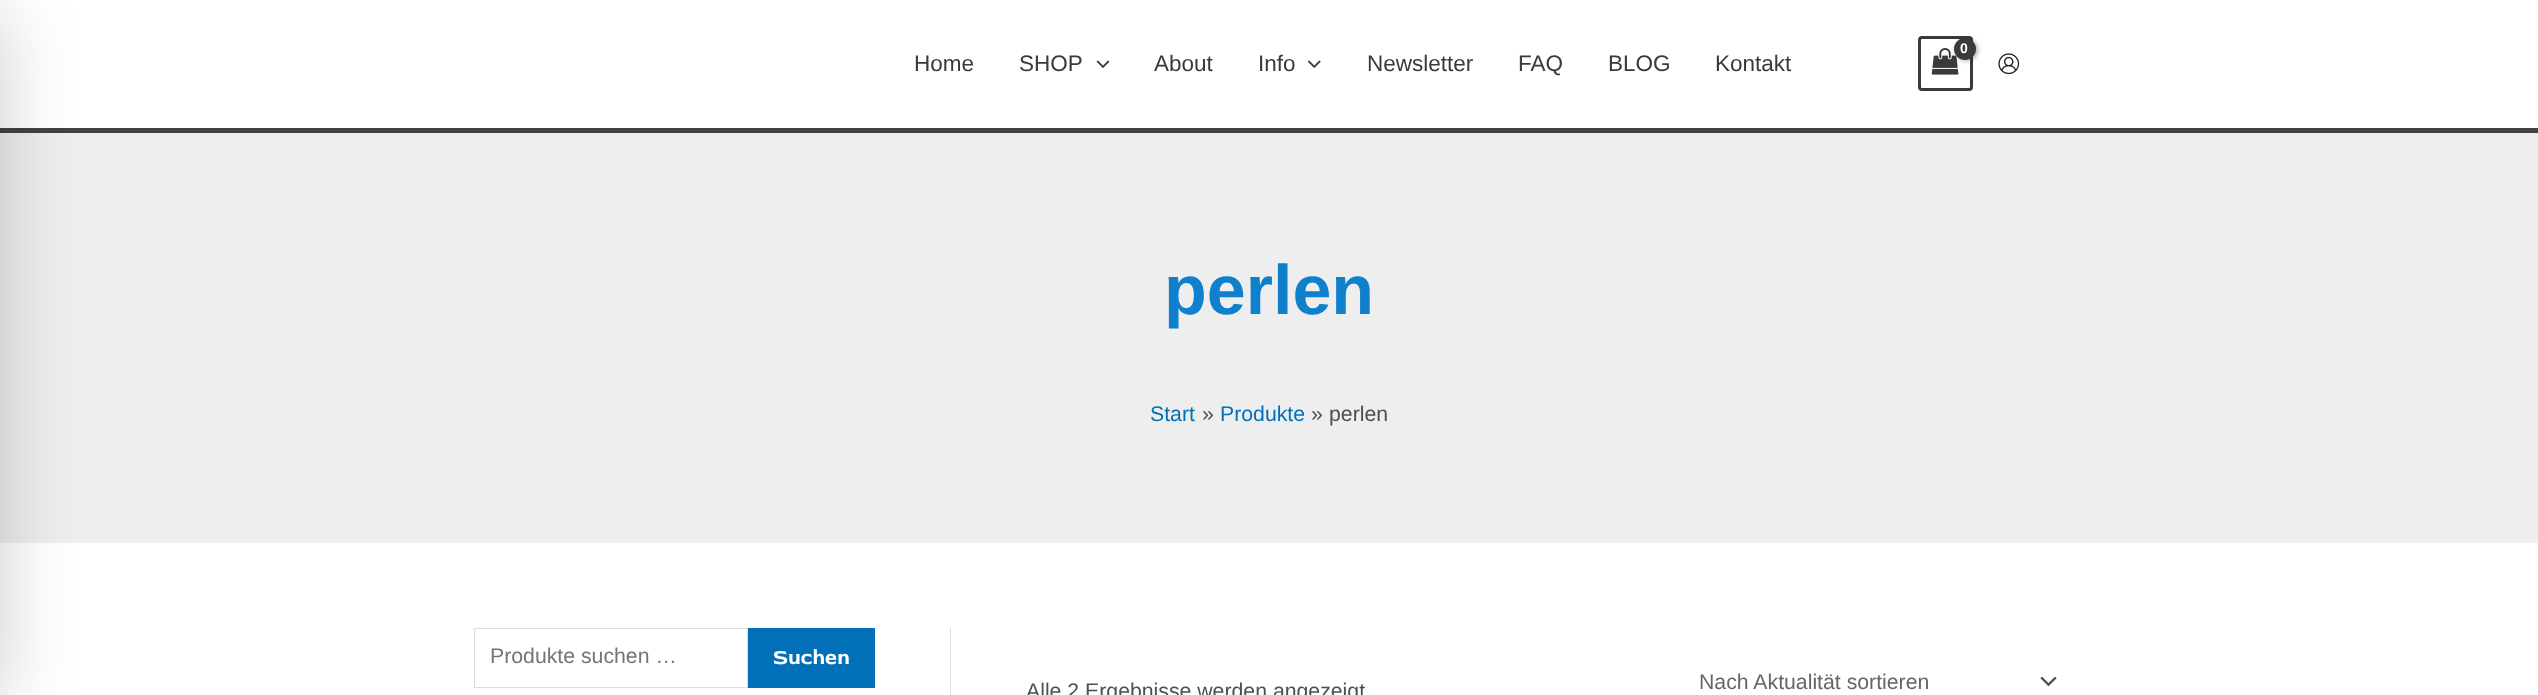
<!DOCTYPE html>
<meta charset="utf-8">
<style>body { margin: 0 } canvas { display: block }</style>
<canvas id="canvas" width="2538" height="695"></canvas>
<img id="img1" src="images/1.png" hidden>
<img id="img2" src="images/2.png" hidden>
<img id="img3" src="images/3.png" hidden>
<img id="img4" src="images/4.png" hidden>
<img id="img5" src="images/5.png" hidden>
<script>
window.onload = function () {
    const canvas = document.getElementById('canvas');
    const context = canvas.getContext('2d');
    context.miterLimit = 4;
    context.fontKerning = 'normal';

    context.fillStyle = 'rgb(255, 255, 255)';
    context.fillRect(0, 0, 2538, 695);
    context.fillStyle = 'rgb(66, 66, 66)';
    context.fillRect(0, 128, 2538, 5);
    context.fillStyle = 'rgb(238, 238, 238)';
    context.fillRect(0, 133, 2538, 410);
    context.fillStyle = 'rgba(0, 0, 0, 0.2)';
    context.filter = 'blur(37.5px)';
    context.beginPath();
    context.rect(-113, 13, 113, 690);
    context.fill();
    context.filter = 'none';
    context.beginPath();
    context.roundRect(1919.5, 37.5, 52, 52, 2.5);
    context.strokeStyle = 'rgb(58, 58, 58)';
    context.lineWidth = 3;
    context.stroke();
    context.drawImage(document.getElementById('img1'), 1931, 48, 28, 27);
    context.fillStyle = 'rgba(0, 0, 0, 0.3)';
    context.filter = 'blur(2px)';
    context.beginPath();
    context.roundRect(1955, 39, 23, 22, 11);
    context.fill();
    context.filter = 'none';
    context.fillStyle = 'rgb(58, 58, 58)';
    context.beginPath();
    context.arc(1965, 49, 11, 0, 2 * Math.PI);
    context.fill();
    context.drawImage(document.getElementById('img2'), 1998, 53, 22, 22);
    context.drawImage(document.getElementById('img3'), 1096, 60, 13, 8);
    context.drawImage(document.getElementById('img4'), 1308, 60, 13, 8);
    context.strokeStyle = 'rgb(221, 221, 221)';
    context.lineWidth = 1;
    context.strokeRect(474.5, 628.5, 273, 59);
    context.fillStyle = 'rgb(1, 112, 185)';
    context.fillRect(748, 628, 127, 60);
    context.fillStyle = 'rgb(221, 221, 221)';
    context.fillRect(950, 628, 1, 67);
    context.drawImage(document.getElementById('img5'), 2040, 676, 17, 11);
    context.letterSpacing = '-1px';
    context.font = 'bold 14px Liberation Sans';
    context.fillStyle = 'rgb(255, 255, 255)';
    context.fillText('0', 1960, 53);
    context.letterSpacing = '0px';
    context.font = '22.5px Liberation Sans';
    context.fillStyle = 'rgb(58, 58, 58)';
    context.fillText('Home', 914, 71);
    context.fillText('SHOP', 1019, 71);
    context.fillText('About', 1154, 71);
    context.fillText('Info', 1258, 71);
    context.fillText('Newsletter', 1367, 71);
    context.fillText('FAQ', 1518, 71);
    context.fillText('BLOG', 1608, 71);
    context.fillText('Kontakt', 1715, 71);
    context.font = 'bold 70px Liberation Sans';
    context.fillStyle = 'rgb(14, 128, 204)';
    context.fillText('perlen', 1164, 314);
    context.font = '21.25px Liberation Sans';
    context.fillStyle = 'rgb(1, 112, 185)';
    context.fillText('Start', 1150, 421);
    context.fillStyle = 'rgb(75, 79, 88)';
    context.fillText('»', 1202, 421);
    context.fillStyle = 'rgb(1, 112, 185)';
    context.fillText('Produkte', 1220, 421);
    context.fillStyle = 'rgb(75, 79, 88)';
    context.fillText('»', 1311, 421);
    context.fillText('perlen', 1329, 421);
    context.fillStyle = 'rgb(117, 117, 117)';
    context.fillText('Produkte suchen …', 490, 663);
    context.font = 'bold 21.25px Red Rose';
    context.fillStyle = 'rgb(255, 255, 255)';
    context.fillText('Suchen', 773, 664);
    context.font = '21.25px Liberation Sans';
    context.fillStyle = 'rgb(75, 79, 88)';
    context.fillText('Alle 2 Ergebnisse werden angezeigt', 1026, 698);
    context.fillStyle = 'rgb(102, 102, 102)';
    context.fillText('Nach Aktualität sortieren', 1699, 689);
};
</script>
